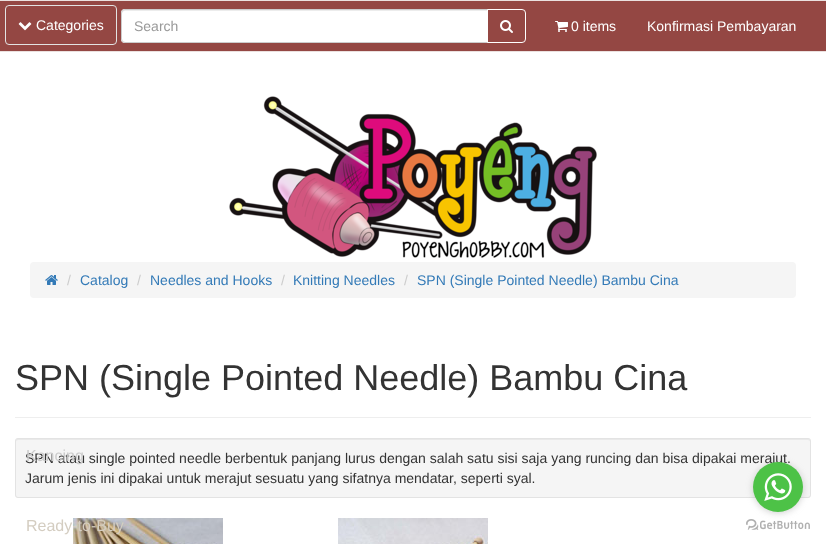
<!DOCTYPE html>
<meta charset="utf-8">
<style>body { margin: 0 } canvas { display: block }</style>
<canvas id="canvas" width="826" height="544"></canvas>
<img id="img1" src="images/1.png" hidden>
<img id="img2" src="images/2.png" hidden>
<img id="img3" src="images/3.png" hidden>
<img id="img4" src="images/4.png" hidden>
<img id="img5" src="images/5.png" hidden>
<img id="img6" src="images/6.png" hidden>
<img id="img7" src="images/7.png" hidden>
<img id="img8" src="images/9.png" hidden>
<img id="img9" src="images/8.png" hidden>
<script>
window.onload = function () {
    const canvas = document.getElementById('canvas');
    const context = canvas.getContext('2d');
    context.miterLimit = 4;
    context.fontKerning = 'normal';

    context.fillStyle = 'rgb(255, 255, 255)';
    context.fillRect(0, 0, 826, 544);
    context.fillStyle = 'rgb(148, 71, 67)';
    context.fillRect(0, 1, 826, 50);
    context.beginPath();
    context.roundRect(5.5, 5.5, 111, 39, 3.5);
    context.strokeStyle = 'rgb(227, 227, 227)';
    context.stroke();
    context.drawImage(document.getElementById('img1'), 18, 22, 14, 9);
    context.fillStyle = 'rgb(255, 255, 255)';
    context.beginPath();
    context.roundRect(121, 9, 367, 34, [4, 0, 0, 4]);
    context.fill();
    context.fillStyle = 'rgb(236, 236, 236)';
    context.beginPath();
    context.moveTo(125, 11);
    context.lineTo(487, 11);
    context.lineTo(487, 10);
    context.lineTo(125, 10);
    context.bezierCurveTo(123, 10, 122, 11, 122, 13);
    context.lineTo(122, 14);
    context.bezierCurveTo(122, 12, 123, 11, 125, 11);
    context.closePath();
    context.fill();
    context.beginPath();
    context.roundRect(121.5, 9.5, 366, 33, [3.5, 0, 0, 3.5]);
    context.strokeStyle = 'rgb(204, 204, 204)';
    context.stroke();
    context.fillStyle = 'rgb(148, 71, 67)';
    context.beginPath();
    context.roundRect(487.5, 9.5, 38, 33, [0, 3.5, 3.5, 0]);
    context.fill();
    context.strokeStyle = 'rgb(255, 255, 255)';
    context.stroke();
    context.drawImage(document.getElementById('img2'), 500, 20, 13, 13);
    context.drawImage(document.getElementById('img3'), 229, 96, 368, 163);
    context.fillStyle = 'rgb(245, 245, 245)';
    context.beginPath();
    context.roundRect(30, 262, 766, 36, 4);
    context.fill();
    context.drawImage(document.getElementById('img4'), 45, 275, 13, 10);
    context.fillStyle = 'rgb(235, 225, 223)';
    context.fillRect(0, 0, 826, 1);
    context.fillRect(0, 51, 826, 1);
    context.drawImage(document.getElementById('img5'), 555, 21, 13, 11);
    context.fillStyle = 'rgb(238, 238, 238)';
    context.fillRect(15, 417, 796, 1);
    context.fillStyle = 'rgb(245, 245, 245)';
    context.beginPath();
    context.roundRect(15, 438, 796, 60, 3);
    context.fill();
    context.fillStyle = 'rgb(233, 233, 233)';
    context.beginPath();
    context.moveTo(18, 440);
    context.lineTo(808, 440);
    context.bezierCurveTo(809, 440, 810, 441, 810, 442);
    context.bezierCurveTo(810, 441, 810, 439, 808, 439);
    context.lineTo(18, 439);
    context.bezierCurveTo(16, 439, 16, 441, 16, 442);
    context.bezierCurveTo(16, 441, 17, 440, 18, 440);
    context.closePath();
    context.fill();
    context.beginPath();
    context.roundRect(15.5, 438.5, 795, 59, 2.5);
    context.strokeStyle = 'rgb(227, 227, 227)';
    context.stroke();
    context.drawImage(document.getElementById('img6'), 73, 518, 150, 26);
    context.drawImage(document.getElementById('img7'), 338, 518, 150, 26);
    context.drawImage(document.getElementById('img8'), 746, 519, 64, 11);
    context.fillStyle = 'rgba(136, 136, 136, 0.4)';
    context.filter = 'blur(3.5px)';
    context.beginPath();
    context.roundRect(753, 463, 50, 50, 25);
    context.fill();
    context.filter = 'none';
    context.font = '14px Liberation Sans';
    context.fillStyle = 'rgb(255, 255, 255)';
    context.fillText('Categories', 36, 30);
    context.font = '16px Liberation Sans';
    context.fillStyle = 'rgb(212, 205, 193)';
    context.fillText('Ready-to-Buy', 26, 531);
    context.font = '14px Liberation Sans';
    context.fillStyle = 'rgb(153, 153, 153)';
    context.fillText('Search', 134, 31);
    context.fillStyle = 'rgb(204, 204, 204)';
    context.fillText('/', 67, 285);
    context.fillStyle = 'rgb(51, 122, 183)';
    context.fillText('Catalog', 80, 285);
    context.fillStyle = 'rgb(204, 204, 204)';
    context.fillText('/', 137, 285);
    context.fillStyle = 'rgb(51, 122, 183)';
    context.fillText('Needles and Hooks', 150, 285);
    context.fillStyle = 'rgb(204, 204, 204)';
    context.fillText('/', 281, 285);
    context.fillStyle = 'rgb(51, 122, 183)';
    context.fillText('Knitting Needles', 293, 285);
    context.fillStyle = 'rgb(204, 204, 204)';
    context.fillText('/', 404, 285);
    context.fillStyle = 'rgb(51, 122, 183)';
    context.fillText('SPN (Single Pointed Needle) Bambu Cina', 417, 285);
    context.fillStyle = 'rgb(255, 255, 255)';
    context.fillText('0 items', 571, 31);
    context.fillText('Konfirmasi Pembayaran', 647, 31);
    context.font = '36px Liberation Sans';
    context.fillStyle = 'rgb(51, 51, 51)';
    context.fillText('SPN (Single Pointed Needle) Bambu Cina', 15, 390);
    context.font = '14px Liberation Sans';
    context.fillText('SPN atau single pointed needle berbentuk panjang lurus dengan salah satu sisi saja yang runcing dan bisa dipakai merajut.', 25, 463);
    context.font = '16px Liberation Sans';
    context.fillStyle = 'rgb(204, 204, 204)';
    context.fillText('Kancing', 26, 461);
    context.font = '14px Liberation Sans';
    context.fillStyle = 'rgb(51, 51, 51)';
    context.fillText('Jarum jenis ini dipakai untuk merajut sesuatu yang sifatnya mendatar, seperti syal.', 25, 483);
    context.fillStyle = 'rgb(77, 194, 71)';
    context.beginPath();
    context.arc(778, 487, 25, 0, 2 * Math.PI);
    context.fill();
    context.drawImage(document.getElementById('img9'), 764, 473, 28, 28);
};
</script>
